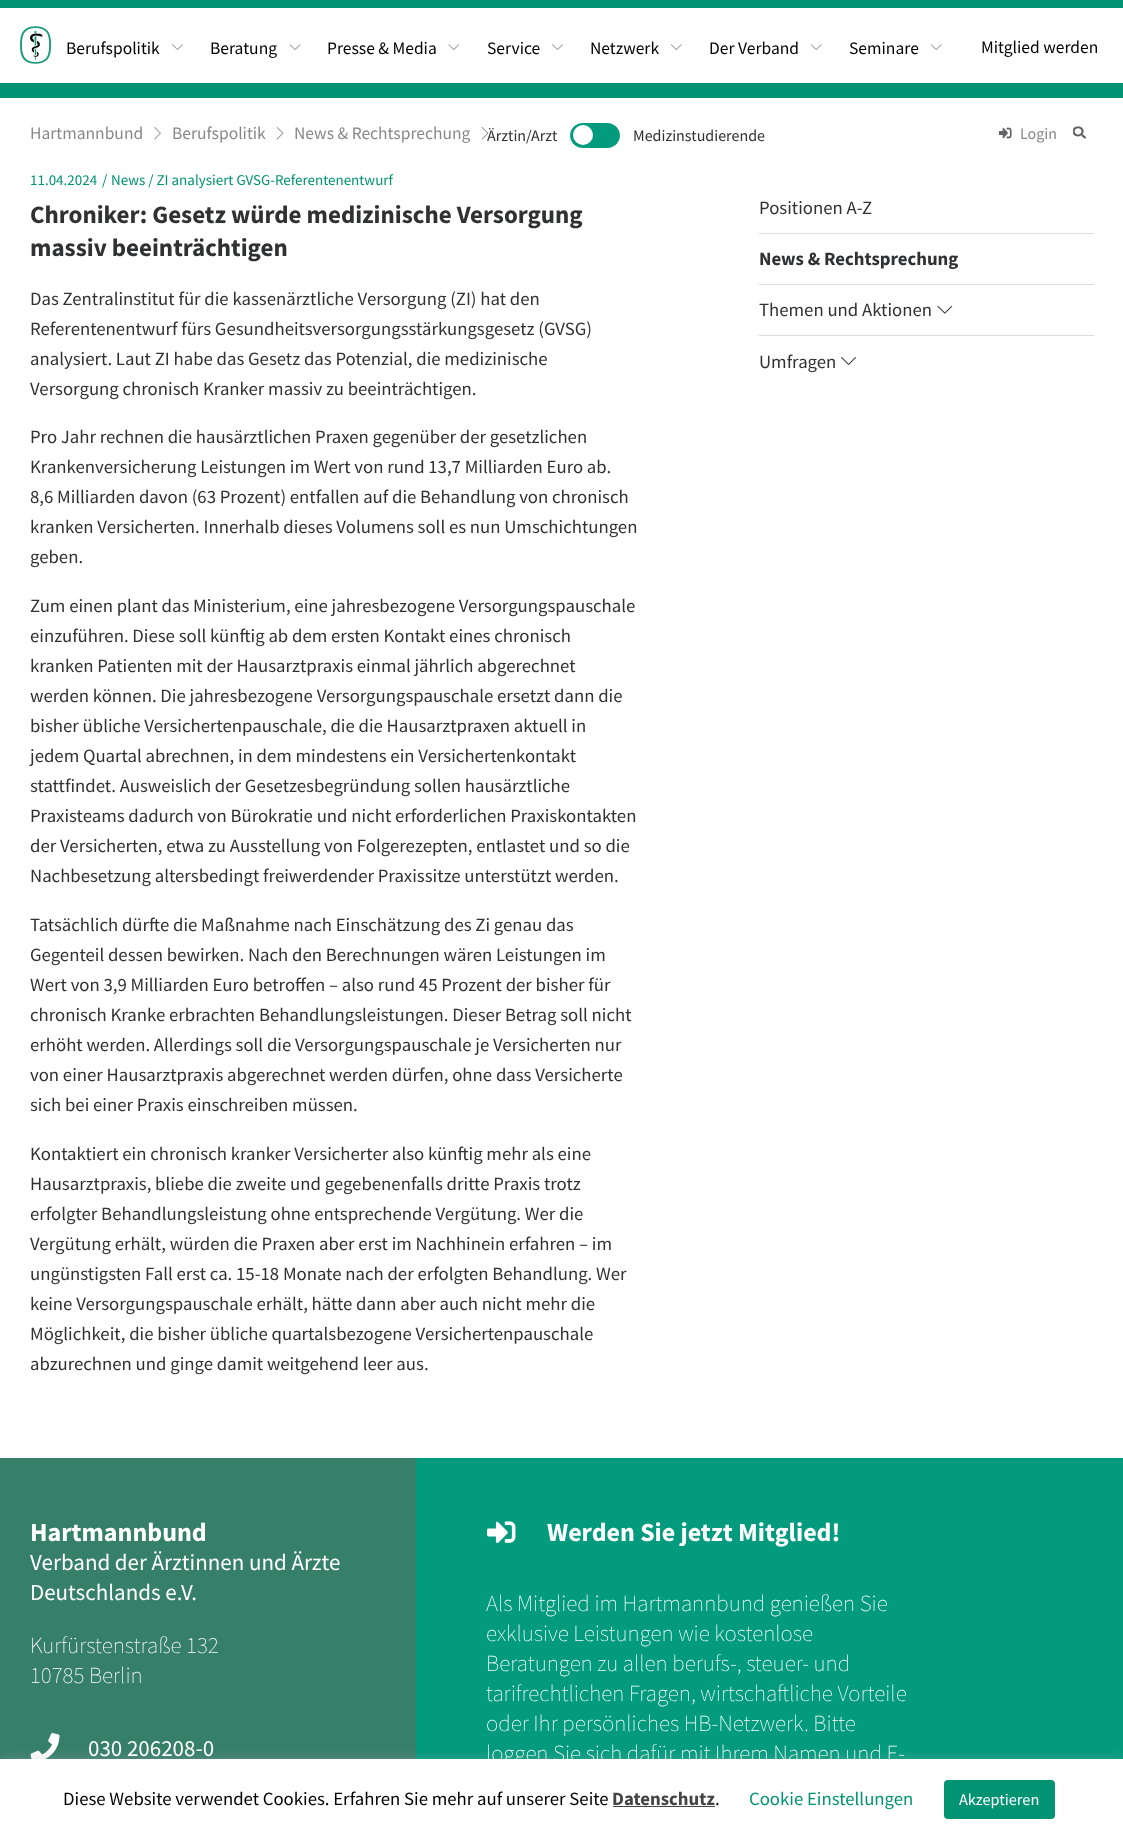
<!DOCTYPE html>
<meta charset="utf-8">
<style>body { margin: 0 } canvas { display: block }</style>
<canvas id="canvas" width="1123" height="1839"></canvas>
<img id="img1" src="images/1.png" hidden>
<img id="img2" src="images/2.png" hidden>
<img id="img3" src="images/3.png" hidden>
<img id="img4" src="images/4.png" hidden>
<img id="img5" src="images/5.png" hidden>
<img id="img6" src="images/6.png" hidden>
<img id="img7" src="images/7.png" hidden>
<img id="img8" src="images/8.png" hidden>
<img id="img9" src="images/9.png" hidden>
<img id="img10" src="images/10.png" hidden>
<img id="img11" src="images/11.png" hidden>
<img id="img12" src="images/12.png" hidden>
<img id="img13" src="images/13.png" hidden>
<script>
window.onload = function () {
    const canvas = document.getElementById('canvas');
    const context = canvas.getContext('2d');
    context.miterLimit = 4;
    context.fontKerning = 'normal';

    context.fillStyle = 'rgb(255, 255, 255)';
    context.fillRect(0, 0, 1123, 1839);
    context.fillStyle = 'rgb(1, 147, 114)';
    context.fillRect(0, 0, 1123, 8);
    context.drawImage(document.getElementById('img1'), 20, 26, 32, 38);
    context.drawImage(document.getElementById('img2'), 172, 44, 11, 6);
    context.drawImage(document.getElementById('img3'), 289, 44, 12, 6);
    context.drawImage(document.getElementById('img4'), 448, 44, 12, 6);
    context.drawImage(document.getElementById('img2'), 552, 44, 11, 6);
    context.drawImage(document.getElementById('img5'), 670, 44, 12, 6);
    context.drawImage(document.getElementById('img5'), 810, 44, 12, 6);
    context.drawImage(document.getElementById('img5'), 930, 44, 12, 6);
    context.fillRect(0, 83, 1123, 15);
    context.drawImage(document.getElementById('img6'), 154, 127, 7, 13);
    context.drawImage(document.getElementById('img7'), 276, 127, 8, 13);
    context.drawImage(document.getElementById('img7'), 481, 127, 8, 13);
    context.fillStyle = 'rgb(2, 155, 126)';
    context.beginPath();
    context.roundRect(570.5, 123.5, 49, 24, 12);
    context.fill();
    context.strokeStyle = 'rgb(2, 155, 126)';
    context.stroke();
    context.fillStyle = 'rgb(255, 255, 255)';
    context.beginPath();
    context.arc(583, 135, 10, 0, 2 * Math.PI);
    context.fill();
    context.drawImage(document.getElementById('img8'), 999, 127, 13, 12);
    context.drawImage(document.getElementById('img9'), 1073, 126, 13, 13);
    context.fillStyle = 'rgb(221, 221, 221)';
    context.fillRect(759, 233, 335, 1);
    context.fillRect(759, 284, 335, 1);
    context.fillRect(759, 335, 335, 1);
    context.drawImage(document.getElementById('img10'), 937, 305, 16, 9);
    context.drawImage(document.getElementById('img11'), 841, 357, 15, 8);
    context.fillStyle = 'rgb(54, 127, 104)';
    context.fillRect(0, 1458, 416, 301);
    context.fillStyle = 'rgb(2, 155, 126)';
    context.fillRect(416, 1458, 707, 301);
    context.drawImage(document.getElementById('img12'), 30, 1733, 30, 26);
    context.drawImage(document.getElementById('img13'), 487, 1521, 29, 22);
    context.fillStyle = 'rgba(172, 171, 171, 0.3)';
    context.filter = 'blur(6px)';
    context.beginPath();
    context.rect(0, 1758, 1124, 81);
    context.fill();
    context.filter = 'none';
    context.fillStyle = 'rgb(255, 255, 255)';
    context.fillRect(0, 1759, 1123, 80);
    context.fillStyle = 'rgb(68, 68, 68)';
    context.fillRect(613, 1806, 102, 1);
    context.fillStyle = 'rgb(1, 147, 114)';
    context.beginPath();
    context.roundRect(944, 1780, 111, 39, 4);
    context.fill();
    context.font = '17.5px Source Sans Pro';
    context.fillStyle = 'rgb(0, 0, 0)';
    context.fillText('Berufspolitik', 66, 54);
    context.fillText('Beratung', 210, 54);
    context.fillText('Presse & Media', 327, 54);
    context.fillText('Service', 487, 54);
    context.fillText('Netzwerk', 590, 54);
    context.fillText('Der Verband', 709, 54);
    context.fillText('Seminare', 849, 54);
    context.fillText('Mitglied werden', 981, 53);
    context.fillStyle = 'rgb(136, 136, 136)';
    context.fillText('Hartmannbund', 30, 139);
    context.fillText('Berufspolitik', 172, 139);
    context.fillText('News & Rechtsprechung', 294, 139);
    context.font = '16px Source Sans Pro';
    context.fillStyle = 'rgb(48, 49, 51)';
    context.fillText('Ärztin/Arzt', 487, 141);
    context.fillText('Medizinstudierende', 633, 141);
    context.fillStyle = 'rgb(136, 136, 136)';
    context.fillText('Login', 1020, 139);
    context.font = '15px Source Sans Pro';
    context.fillStyle = 'rgb(1, 147, 114)';
    context.fillText('11.04.2024', 30, 185);
    context.fillText('/', 102, 185);
    context.fillText('News / ZI analysiert GVSG-Referentenentwurf', 111, 185);
    context.font = 'bold 25px Source Sans Pro';
    context.fillStyle = 'rgb(48, 49, 51)';
    context.fillText('Chroniker: Gesetz würde medizinische Versorgung', 30, 223);
    context.fillText('massiv beeinträchtigen', 30, 256);
    context.font = '18.75px Source Sans Pro';
    context.fillText('Das Zentralinstitut für die kassenärztliche Versorgung (ZI) hat den', 30, 305);
    context.fillText('Referentenentwurf fürs Gesundheitsversorgungsstärkungsgesetz (GVSG)', 30, 335);
    context.fillText('analysiert. Laut ZI habe das Gesetz das Potenzial, die medizinische', 30, 365);
    context.fillText('Versorgung chronisch Kranker massiv zu beeinträchtigen.', 30, 395);
    context.fillText('Pro Jahr rechnen die hausärztlichen Praxen gegenüber der gesetzlichen', 30, 443);
    context.fillText('Krankenversicherung Leistungen im Wert von rund 13,7 Milliarden Euro ab.', 30, 473);
    context.fillText('8,6 Milliarden davon (63 Prozent) entfallen auf die Behandlung von chronisch', 30, 503);
    context.fillText('kranken Versicherten. Innerhalb dieses Volumens soll es nun Umschichtungen', 30, 533);
    context.fillText('geben.', 30, 563);
    context.fillText('Zum einen plant das Ministerium, eine jahresbezogene Versorgungspauschale', 30, 612);
    context.fillText('einzuführen. Diese soll künftig ab dem ersten Kontakt eines chronisch', 30, 642);
    context.fillText('kranken Patienten mit der Hausarztpraxis einmal jährlich abgerechnet', 30, 672);
    context.fillText('werden können. Die jahresbezogene Versorgungspauschale ersetzt dann die', 30, 702);
    context.fillText('bisher übliche Versichertenpauschale, die die Hausarztpraxen aktuell in', 30, 732);
    context.fillText('jedem Quartal abrechnen, in dem mindestens ein Versichertenkontakt', 30, 762);
    context.fillText('stattfindet. Ausweislich der Gesetzesbegründung sollen hausärztliche', 30, 792);
    context.fillText('Praxisteams dadurch von Bürokratie und nicht erforderlichen Praxiskontakten', 30, 822);
    context.fillText('der Versicherten, etwa zu Ausstellung von Folgerezepten, entlastet und so die', 30, 852);
    context.fillText('Nachbesetzung altersbedingt freiwerdender Praxissitze unterstützt werden.', 30, 882);
    context.fillText('Tatsächlich dürfte die Maßnahme nach Einschätzung des Zi genau das', 30, 931);
    context.fillText('Gegenteil dessen bewirken. Nach den Berechnungen wären Leistungen im', 30, 961);
    context.fillText('Wert von 3,9 Milliarden Euro betroffen – also rund 45 Prozent der bisher für', 30, 991);
    context.fillText('chronisch Kranke erbrachten Behandlungsleistungen. Dieser Betrag soll nicht', 30, 1021);
    context.fillText('erhöht werden. Allerdings soll die Versorgungspauschale je Versicherten nur', 30, 1051);
    context.fillText('von einer Hausarztpraxis abgerechnet werden dürfen, ohne dass Versicherte', 30, 1081);
    context.fillText('sich bei einer Praxis einschreiben müssen.', 30, 1111);
    context.fillText('Kontaktiert ein chronisch kranker Versicherter also künftig mehr als eine', 30, 1160);
    context.fillText('Hausarztpraxis, bliebe die zweite und gegebenenfalls dritte Praxis trotz', 30, 1190);
    context.fillText('erfolgter Behandlungsleistung ohne entsprechende Vergütung. Wer die', 30, 1220);
    context.fillText('Vergütung erhält, würden die Praxen aber erst im Nachhinein erfahren – im', 30, 1250);
    context.fillText('ungünstigsten Fall erst ca. 15-18 Monate nach der erfolgten Behandlung. Wer', 30, 1280);
    context.fillText('keine Versorgungspauschale erhält, hätte dann aber auch nicht mehr die', 30, 1310);
    context.fillText('Möglichkeit, die bisher übliche quartalsbezogene Versichertenpauschale', 30, 1340);
    context.fillText('abzurechnen und ginge damit weitgehend leer aus.', 30, 1370);
    context.fillText('Positionen A-Z', 759, 214);
    context.font = 'bold 18.75px Source Sans Pro';
    context.fillText('News & Rechtsprechung', 759, 265);
    context.font = '18.75px Source Sans Pro';
    context.fillText('Themen und Aktionen', 759, 316);
    context.fillText('Umfragen', 759, 368);
    context.font = 'bold 26px Source Sans Pro';
    context.fillStyle = 'rgb(255, 255, 255)';
    context.fillText('Hartmannbund', 30, 1541);
    context.font = '23px Source Sans Pro';
    context.fillText('Verband der Ärztinnen und Ärzte', 30, 1570);
    context.fillText('Deutschlands e.V.', 30, 1600);
    context.font = '200 23px Source Sans Pro';
    context.fillText('Kurfürstenstraße 132', 30, 1653);
    context.fillText('10785 Berlin', 30, 1683);
    context.font = '23px Source Sans Pro';
    context.fillText('030 206208-0', 88, 1756);
    context.font = 'bold 26px Source Sans Pro';
    context.fillText('Werden Sie jetzt Mitglied!', 547, 1541);
    context.font = '200 23px Source Sans Pro';
    context.fillText('Als Mitglied im Hartmannbund genießen Sie', 486, 1611);
    context.fillText('exklusive Leistungen wie kostenlose', 486, 1641);
    context.fillText('Beratungen zu allen berufs-, steuer- und', 486, 1671);
    context.fillText('tarifrechtlichen Fragen, wirtschaftliche Vorteile', 486, 1701);
    context.fillText('oder Ihr persönliches HB-Netzwerk. Bitte', 486, 1731);
    context.fillText('loggen Sie sich dafür mit Ihrem Namen und E-', 486, 1761);
    context.font = '18.75px Source Sans Pro';
    context.fillStyle = 'rgb(0, 0, 0)';
    context.fillText('Diese Website verwendet Cookies. Erfahren Sie mehr auf unserer Seite', 63, 1805);
    context.font = 'bold 18.75px Source Sans Pro';
    context.fillStyle = 'rgb(68, 68, 68)';
    context.fillText('Datenschutz', 612, 1805);
    context.font = '18.75px Source Sans Pro';
    context.fillStyle = 'rgb(0, 0, 0)';
    context.fillText('.', 715, 1805);
    context.fillStyle = 'rgb(1, 147, 114)';
    context.fillText('Cookie Einstellungen', 749, 1805);
    context.font = '16.25px Source Sans Pro';
    context.fillStyle = 'rgb(255, 255, 255)';
    context.fillText('Akzeptieren', 959, 1805);
};
</script>
